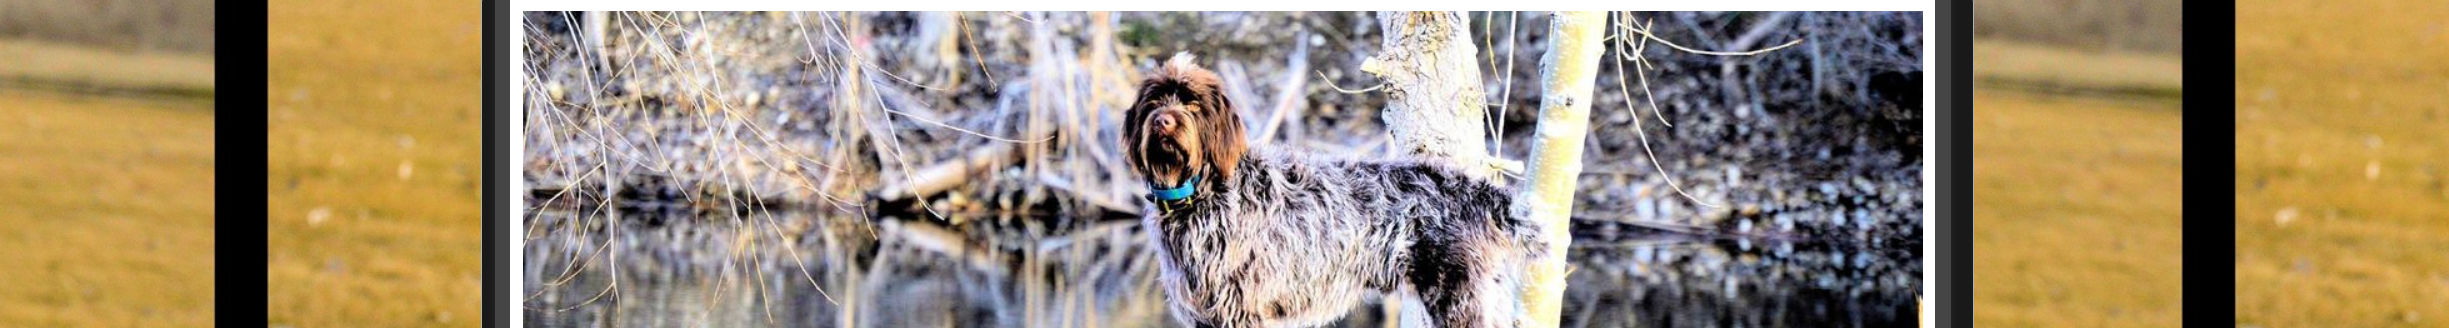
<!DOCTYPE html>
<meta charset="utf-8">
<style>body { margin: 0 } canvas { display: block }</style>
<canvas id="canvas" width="2449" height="328"></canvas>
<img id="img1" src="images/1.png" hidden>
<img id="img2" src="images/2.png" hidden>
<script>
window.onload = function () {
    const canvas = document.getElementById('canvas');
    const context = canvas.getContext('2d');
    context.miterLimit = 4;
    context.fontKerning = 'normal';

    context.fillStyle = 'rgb(255, 255, 255)';
    context.fillRect(0, 0, 2449, 328);
    context.drawImage(document.getElementById('img1'), 0, 0, 2449, 328);
    context.fillStyle = 'rgb(25, 25, 25)';
    context.beginPath();
    context.roundRect(481.5, -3.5, 1492, 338, 5.5);
    context.fill();
    context.strokeStyle = 'rgb(169, 180, 187)';
    context.stroke();
    context.fillStyle = 'rgba(47, 47, 47, 0.75)';
    context.filter = 'blur(4.5px)';
    context.beginPath();
    context.rect(495, -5, 1456, 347);
    context.fill();
    context.filter = 'none';
    context.fillStyle = 'rgb(69, 69, 69)';
    context.fillRect(495, 0, 1456, 328);
    context.strokeStyle = 'rgb(255, 255, 255)';
    context.lineWidth = 13;
    context.strokeRect(516.5, 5.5, 1412, 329);
    context.drawImage(document.getElementById('img2'), 523, 11, 1400, 317);
};
</script>
